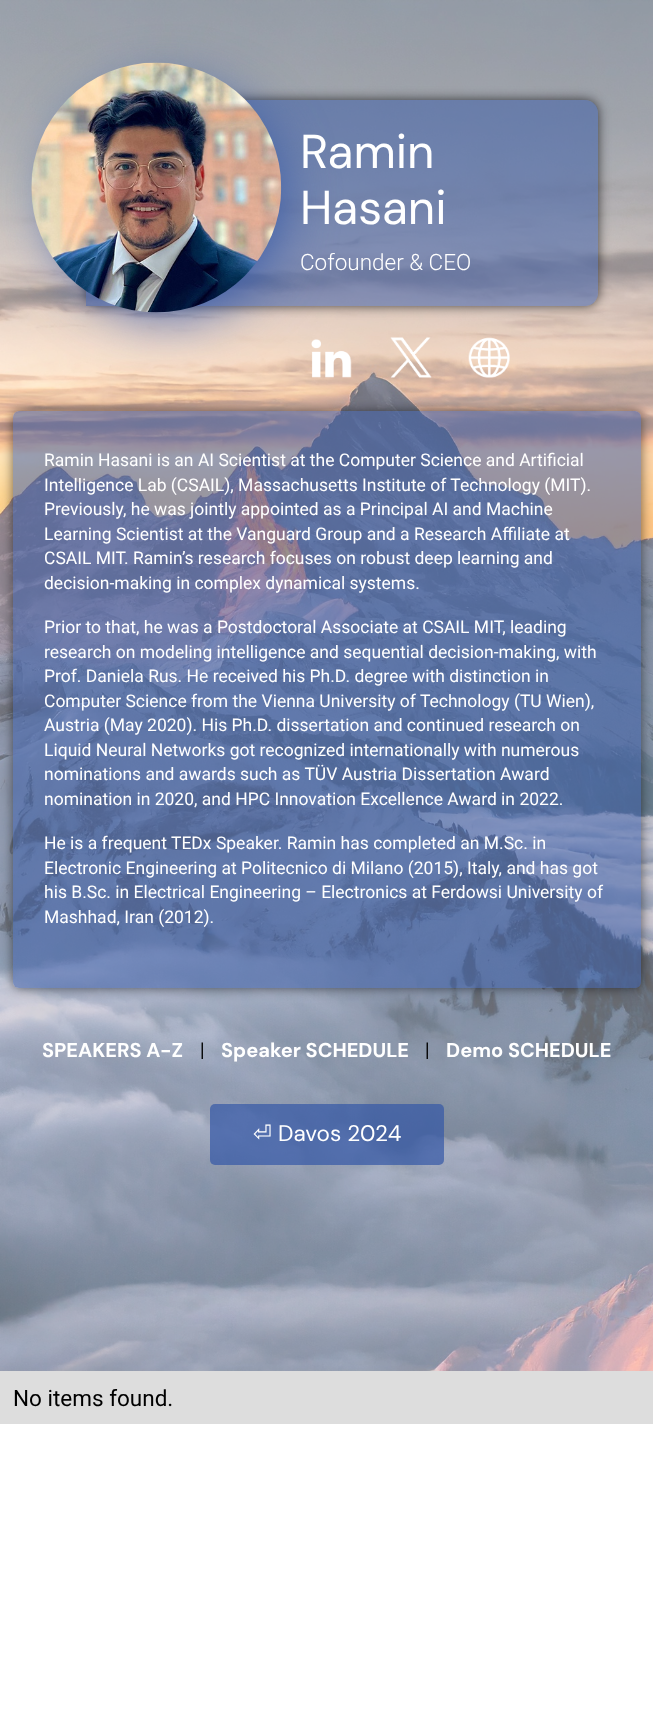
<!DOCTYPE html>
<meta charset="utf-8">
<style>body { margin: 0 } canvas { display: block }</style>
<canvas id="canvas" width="653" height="1719"></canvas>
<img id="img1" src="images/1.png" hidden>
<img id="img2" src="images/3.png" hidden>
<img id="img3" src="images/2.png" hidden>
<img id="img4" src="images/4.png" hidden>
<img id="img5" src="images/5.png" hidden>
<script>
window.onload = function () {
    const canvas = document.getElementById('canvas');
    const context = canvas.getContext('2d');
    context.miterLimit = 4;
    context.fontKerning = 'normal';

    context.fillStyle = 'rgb(255, 255, 255)';
    context.fillRect(0, 0, 653, 1719);
    context.drawImage(document.getElementById('img1'), 0, 0, 653, 1371);
    context.save();
    context.beginPath();
    context.moveTo(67, 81);
    context.lineTo(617, 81);
    context.lineTo(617, 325);
    context.lineTo(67, 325);
    context.closePath();
    context.moveTo(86, 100);
    context.lineTo(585, 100);
    context.bezierCurveTo(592, 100, 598, 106, 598, 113);
    context.lineTo(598, 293);
    context.bezierCurveTo(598, 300, 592, 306, 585, 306);
    context.lineTo(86, 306);
    context.closePath();
    context.clip('evenodd');
    context.fillStyle = 'rgba(0, 0, 0, 0.68)';
    context.filter = 'blur(6px)';
    context.beginPath();
    context.roundRect(86, 100, 512, 206, 13);
    context.fill();
    context.filter = 'none';
    context.restore();
    context.fillStyle = 'rgba(51, 87, 167, 0.5)';
    context.beginPath();
    context.roundRect(86, 100, 512, 206, [0, 13, 13, 0]);
    context.fill();
    context.drawImage(document.getElementById('img2'), 311, 339, 41, 39);
    context.fillStyle = 'rgb(51, 87, 167)';
    context.filter = 'blur(27.5px)';
    context.beginPath();
    context.roundRect(54, 88, 225, 225, 112.5);
    context.fill();
    context.filter = 'none';
    context.drawImage(document.getElementById('img3'), 31, 62, 251, 251);
    context.drawImage(document.getElementById('img4'), 390, 337, 42, 41);
    context.drawImage(document.getElementById('img5'), 468, 337, 42, 41);
    context.save();
    context.beginPath();
    context.moveTo(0, 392);
    context.lineTo(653, 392);
    context.lineTo(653, 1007);
    context.lineTo(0, 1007);
    context.closePath();
    context.moveTo(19, 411);
    context.lineTo(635, 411);
    context.bezierCurveTo(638.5, 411, 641, 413.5, 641, 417);
    context.lineTo(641, 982);
    context.bezierCurveTo(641, 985.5, 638.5, 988, 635, 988);
    context.lineTo(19, 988);
    context.bezierCurveTo(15.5, 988, 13, 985.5, 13, 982);
    context.lineTo(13, 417);
    context.bezierCurveTo(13, 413.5, 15.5, 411, 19, 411);
    context.closePath();
    context.clip('evenodd');
    context.fillStyle = 'rgba(0, 0, 0, 0.56)';
    context.filter = 'blur(6px)';
    context.beginPath();
    context.roundRect(13, 411, 628, 577, 6);
    context.fill();
    context.filter = 'none';
    context.restore();
    context.fillStyle = 'rgba(51, 87, 167, 0.5)';
    context.beginPath();
    context.roundRect(13, 411, 628, 577, 6);
    context.fill();
    context.fillStyle = 'rgba(51, 87, 167, 0.7)';
    context.beginPath();
    context.roundRect(210, 1104, 234, 61, 5);
    context.fill();
    context.fillStyle = 'rgb(221, 221, 221)';
    context.fillRect(0, 1371, 653, 53);
    context.font = '47.5px DM Sans';
    context.fillStyle = 'rgb(255, 255, 255)';
    context.fillText('Ramin', 300, 168);
    context.fillText('Hasani', 300, 224);
    context.font = '300 22.5px Roboto';
    context.fillText('Cofounder & CEO', 300, 270);
    context.font = '17.5px Roboto';
    context.fillText('Ramin Hasani is an AI Scientist at the Computer Science and Artificial', 44, 466);
    context.fillText('Intelligence Lab (CSAIL), Massachusetts Institute of Technology (MIT).', 44, 491);
    context.fillText('Previously, he was jointly appointed as a Principal AI and Machine', 44, 515);
    context.fillText('Learning Scientist at the Vanguard Group and a Research Affiliate at', 44, 540);
    context.fillText('CSAIL MIT. Ramin’s research focuses on robust deep learning and', 44, 564);
    context.fillText('decision-making in complex dynamical systems.', 44, 589);
    context.fillText('Prior to that, he was a Postdoctoral Associate at CSAIL MIT, leading', 44, 633);
    context.fillText('research on modeling intelligence and sequential decision-making, with', 44, 658);
    context.fillText('Prof. Daniela Rus. He received his Ph.D. degree with distinction in', 44, 682);
    context.fillText('Computer Science from the Vienna University of Technology (TU Wien),', 44, 707);
    context.fillText('Austria (May 2020). His Ph.D. dissertation and continued research on', 44, 731);
    context.fillText('Liquid Neural Networks got recognized internationally with numerous', 44, 756);
    context.fillText('nominations and awards such as TÜV Austria Dissertation Award', 44, 780);
    context.fillText('nomination in 2020, and HPC Innovation Excellence Award in 2022.', 44, 805);
    context.fillText('He is a frequent TEDx Speaker. Ramin has completed an M.Sc. in', 44, 849);
    context.fillText('Electronic Engineering at Politecnico di Milano (2015), Italy, and has got', 44, 874);
    context.fillText('his B.Sc. in Electrical Engineering – Electronics at Ferdowsi University of', 44, 898);
    context.fillText('Mashhad, Iran (2012).', 44, 923);
    context.font = 'bold 20px DM Sans';
    context.fillText('SPEAKERS A-Z', 42, 1057);
    context.font = '300 20px DM Sans';
    context.fillStyle = 'rgb(0, 0, 0)';
    context.fillText('|', 200, 1057);
    context.font = 'bold 20px DM Sans';
    context.fillStyle = 'rgb(255, 255, 255)';
    context.fillText('Speaker SCHEDULE', 221, 1057);
    context.font = '300 20px DM Sans';
    context.fillStyle = 'rgb(0, 0, 0)';
    context.fillText('|', 425, 1057);
    context.font = 'bold 20px DM Sans';
    context.fillStyle = 'rgb(255, 255, 255)';
    context.fillText('Demo SCHEDULE', 446, 1057);
    context.font = '22.5px DejaVu Sans';
    context.fillText('⏎', 253, 1141);
    context.font = '22.5px DM Sans';
    context.fillText('Davos 2024', 278, 1141);
    context.font = '22.5px Roboto';
    context.fillStyle = 'rgb(0, 0, 0)';
    context.fillText('No items found.', 13, 1406);
};
</script>
